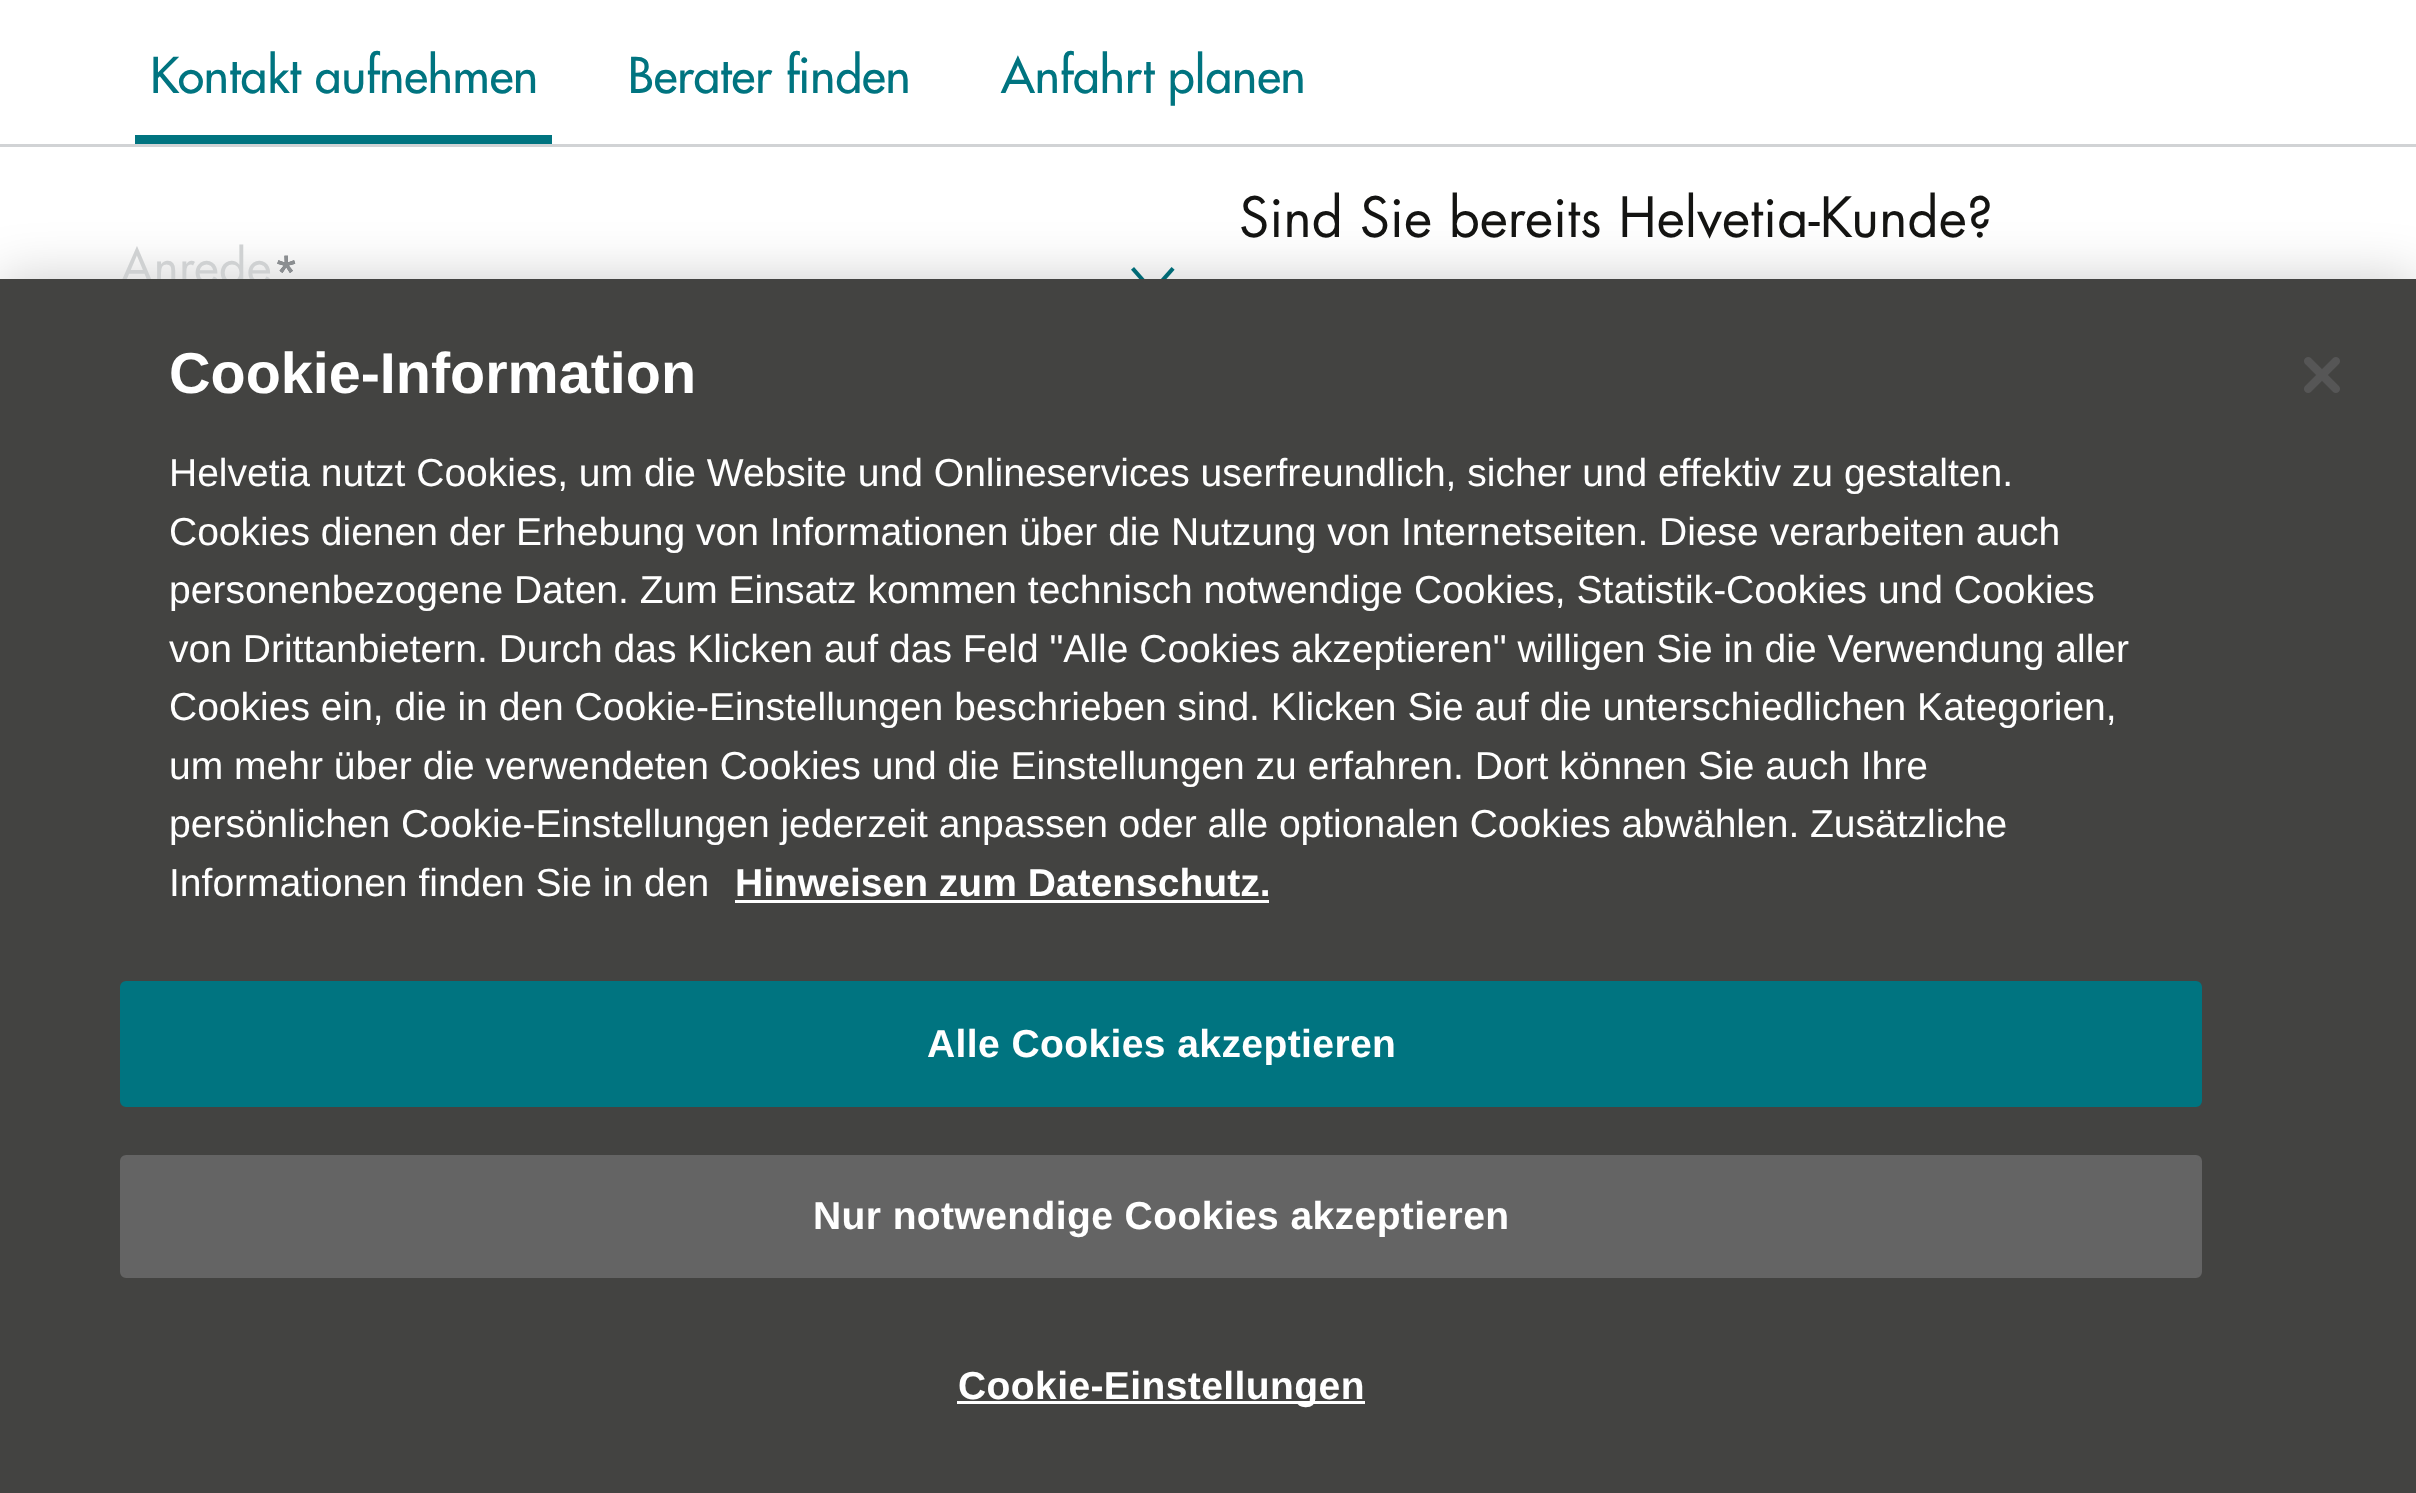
<!DOCTYPE html>
<meta charset="utf-8">
<style>body { margin: 0 } canvas { display: block }</style>
<canvas id="canvas" width="2416" height="1493"></canvas>
<img id="img1" src="images/1.png" hidden>
<img id="img2" src="images/2.png" hidden>
<script>
window.onload = function () {
    const canvas = document.getElementById('canvas');
    const context = canvas.getContext('2d');
    context.miterLimit = 4;
    context.fontKerning = 'normal';

    context.fillStyle = 'rgb(255, 255, 255)';
    context.fillRect(0, 0, 2416, 1493);
    context.fillStyle = 'rgb(0, 116, 128)';
    context.fillRect(135, 135, 417, 9);
    context.fillStyle = 'rgb(209, 211, 213)';
    context.fillRect(0, 144, 2416, 3);
    context.drawImage(document.getElementById('img1'), 1131, 267, 44, 12);
    context.fillStyle = 'rgba(0, 0, 0, 0.2)';
    context.filter = 'blur(27px)';
    context.beginPath();
    context.rect(0, 279, 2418, 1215);
    context.fill();
    context.filter = 'none';
    context.font = '500 48px Futura';
    context.fillStyle = 'rgb(0, 116, 128)';
    context.fillText('Kontakt aufnehmen', 150, 93);
    context.fillText('Berater finden', 628, 93);
    context.fillText('Anfahrt planen', 1001, 93);
    context.font = '54px Futura';
    context.fillStyle = 'rgb(20, 20, 18)';
    context.fillText('Sind Sie bereits Helvetia-Kunde?', 1239, 237);
    context.font = '48px Futura';
    context.fillStyle = 'rgb(207, 209, 210)';
    context.fillText('Anrede', 120, 284);
    context.fillStyle = 'rgb(101, 105, 109)';
    context.fillText('*', 272, 292);
    context.fillStyle = 'rgb(139, 142, 145)';
    context.fillText('*', 272, 292);
    context.fillStyle = 'rgb(67, 67, 65)';
    context.fillRect(0, 279, 2416, 1214);
    context.font = 'bold 57.5px Liberation Sans';
    context.fillStyle = 'rgb(255, 255, 255)';
    context.fillText('Cookie-Information', 169, 393);
    context.font = '39.02px Liberation Sans';
    context.fillText('Helvetia nutzt Cookies, um die Website und Onlineservices userfreundlich, sicher und effektiv zu gestalten.', 169, 486);
    context.fillText('Cookies dienen der Erhebung von Informationen über die Nutzung von Internetseiten. Diese verarbeiten auch', 169, 545);
    context.fillText('personenbezogene Daten. Zum Einsatz kommen technisch notwendige Cookies, Statistik-Cookies und Cookies', 169, 603);
    context.fillText('von Drittanbietern. Durch das Klicken auf das Feld "Alle Cookies akzeptieren" willigen Sie in die Verwendung aller', 169, 662);
    context.fillText('Cookies ein, die in den Cookie-Einstellungen beschrieben sind. Klicken Sie auf die unterschiedlichen Kategorien,', 169, 720);
    context.fillText('um mehr über die verwendeten Cookies und die Einstellungen zu erfahren. Dort können Sie auch Ihre', 169, 779);
    context.wordSpacing = '-0.1px';
    context.fillText('persönlichen Cookie-Einstellungen jederzeit anpassen oder alle optionalen Cookies abwählen. Zusätzliche', 169, 837);
    context.wordSpacing = '0px';
    context.fillText('Informationen finden Sie in den', 169, 896);
    context.font = 'bold 39.02px Liberation Sans';
    context.fillText('Hinweisen zum Datenschutz.', 735, 896);
    context.fillRect(735, 900, 534, 3);
    context.fillStyle = 'rgb(0, 116, 128)';
    context.beginPath();
    context.roundRect(121.5, 982.5, 2079, 123, 4.5);
    context.fill();
    context.strokeStyle = 'rgb(0, 116, 128)';
    context.lineWidth = 3;
    context.stroke();
    context.letterSpacing = '0.4px';
    context.fillStyle = 'rgb(255, 255, 255)';
    context.fillText('Alle Cookies akzeptieren', 927, 1057);
    context.fillStyle = 'rgb(100, 100, 100)';
    context.beginPath();
    context.roundRect(121.5, 1156.5, 2079, 120, 4.5);
    context.fill();
    context.strokeStyle = 'rgb(100, 100, 100)';
    context.stroke();
    context.fillStyle = 'rgb(255, 255, 255)';
    context.fillText('Nur notwendige Cookies akzeptieren', 813, 1229);
    context.fillRect(957, 1401, 408, 3);
    context.fillText('Cookie-Einstellungen', 958, 1399);
    context.drawImage(document.getElementById('img2'), 2304, 357, 36, 36);
};
</script>
